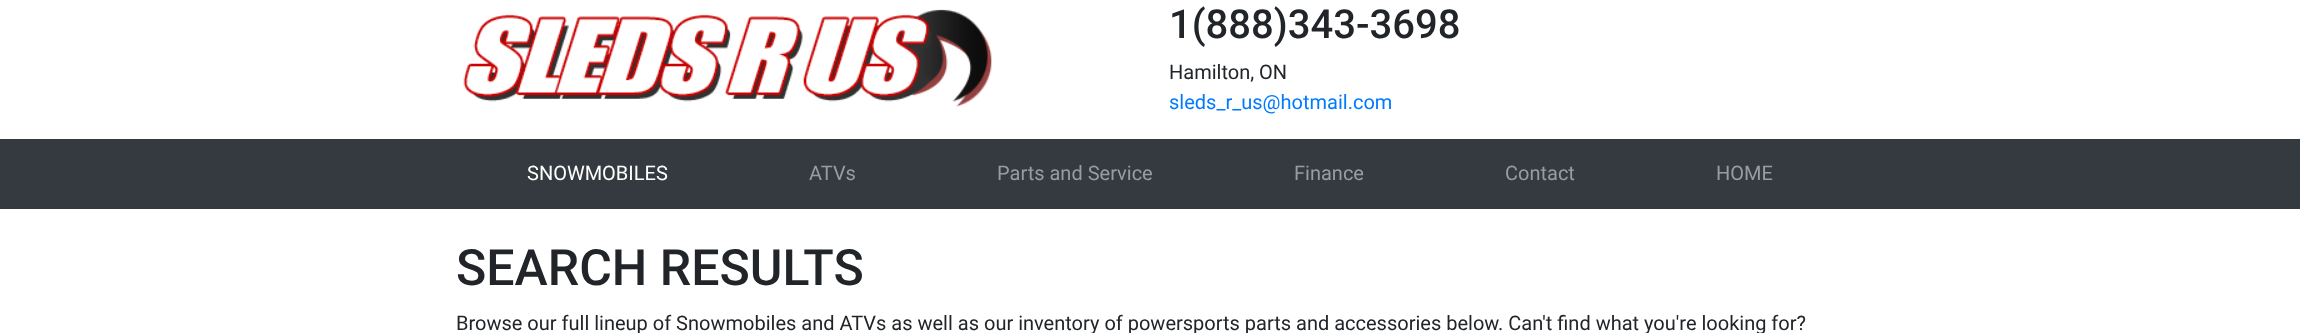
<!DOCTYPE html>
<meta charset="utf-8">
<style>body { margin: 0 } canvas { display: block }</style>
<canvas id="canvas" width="2300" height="333"></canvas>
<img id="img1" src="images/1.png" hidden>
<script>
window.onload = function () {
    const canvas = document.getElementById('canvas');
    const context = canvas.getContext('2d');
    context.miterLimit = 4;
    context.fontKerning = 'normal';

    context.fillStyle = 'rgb(255, 255, 255)';
    context.fillRect(0, 0, 2300, 333);
    context.drawImage(document.getElementById('img1'), 463, 9, 529, 98);
    context.fillStyle = 'rgb(52, 58, 64)';
    context.fillRect(0, 139, 2300, 70);
    context.font = '500 40px Roboto';
    context.fillStyle = 'rgb(33, 37, 41)';
    context.fillText('1(888)343-3698', 1169, 38);
    context.font = '20px Roboto';
    context.fillText('Hamilton, ON', 1169, 79);
    context.fillStyle = 'rgb(0, 123, 255)';
    context.fillText('sleds_r_us@hotmail.com', 1169, 109);
    context.fillStyle = 'rgb(255, 255, 255)';
    context.fillText('SNOWMOBILES', 527, 180);
    context.fillStyle = 'rgb(154, 157, 160)';
    context.fillText('ATVs', 809, 180);
    context.fillText('Parts and Service', 997, 180);
    context.fillText('Finance', 1294, 180);
    context.fillText('Contact', 1505, 180);
    context.fillText('HOME', 1716, 180);
    context.font = '500 50px Roboto';
    context.fillStyle = 'rgb(33, 37, 41)';
    context.fillText('SEARCH RESULTS', 456, 285);
    context.font = '20px Roboto';
    context.fillText('Browse our full lineup of Snowmobiles and ATVs as well as our inventory of powersports parts and accessories below. Can\'t find what you\'re looking for?', 456, 330);
};
</script>
